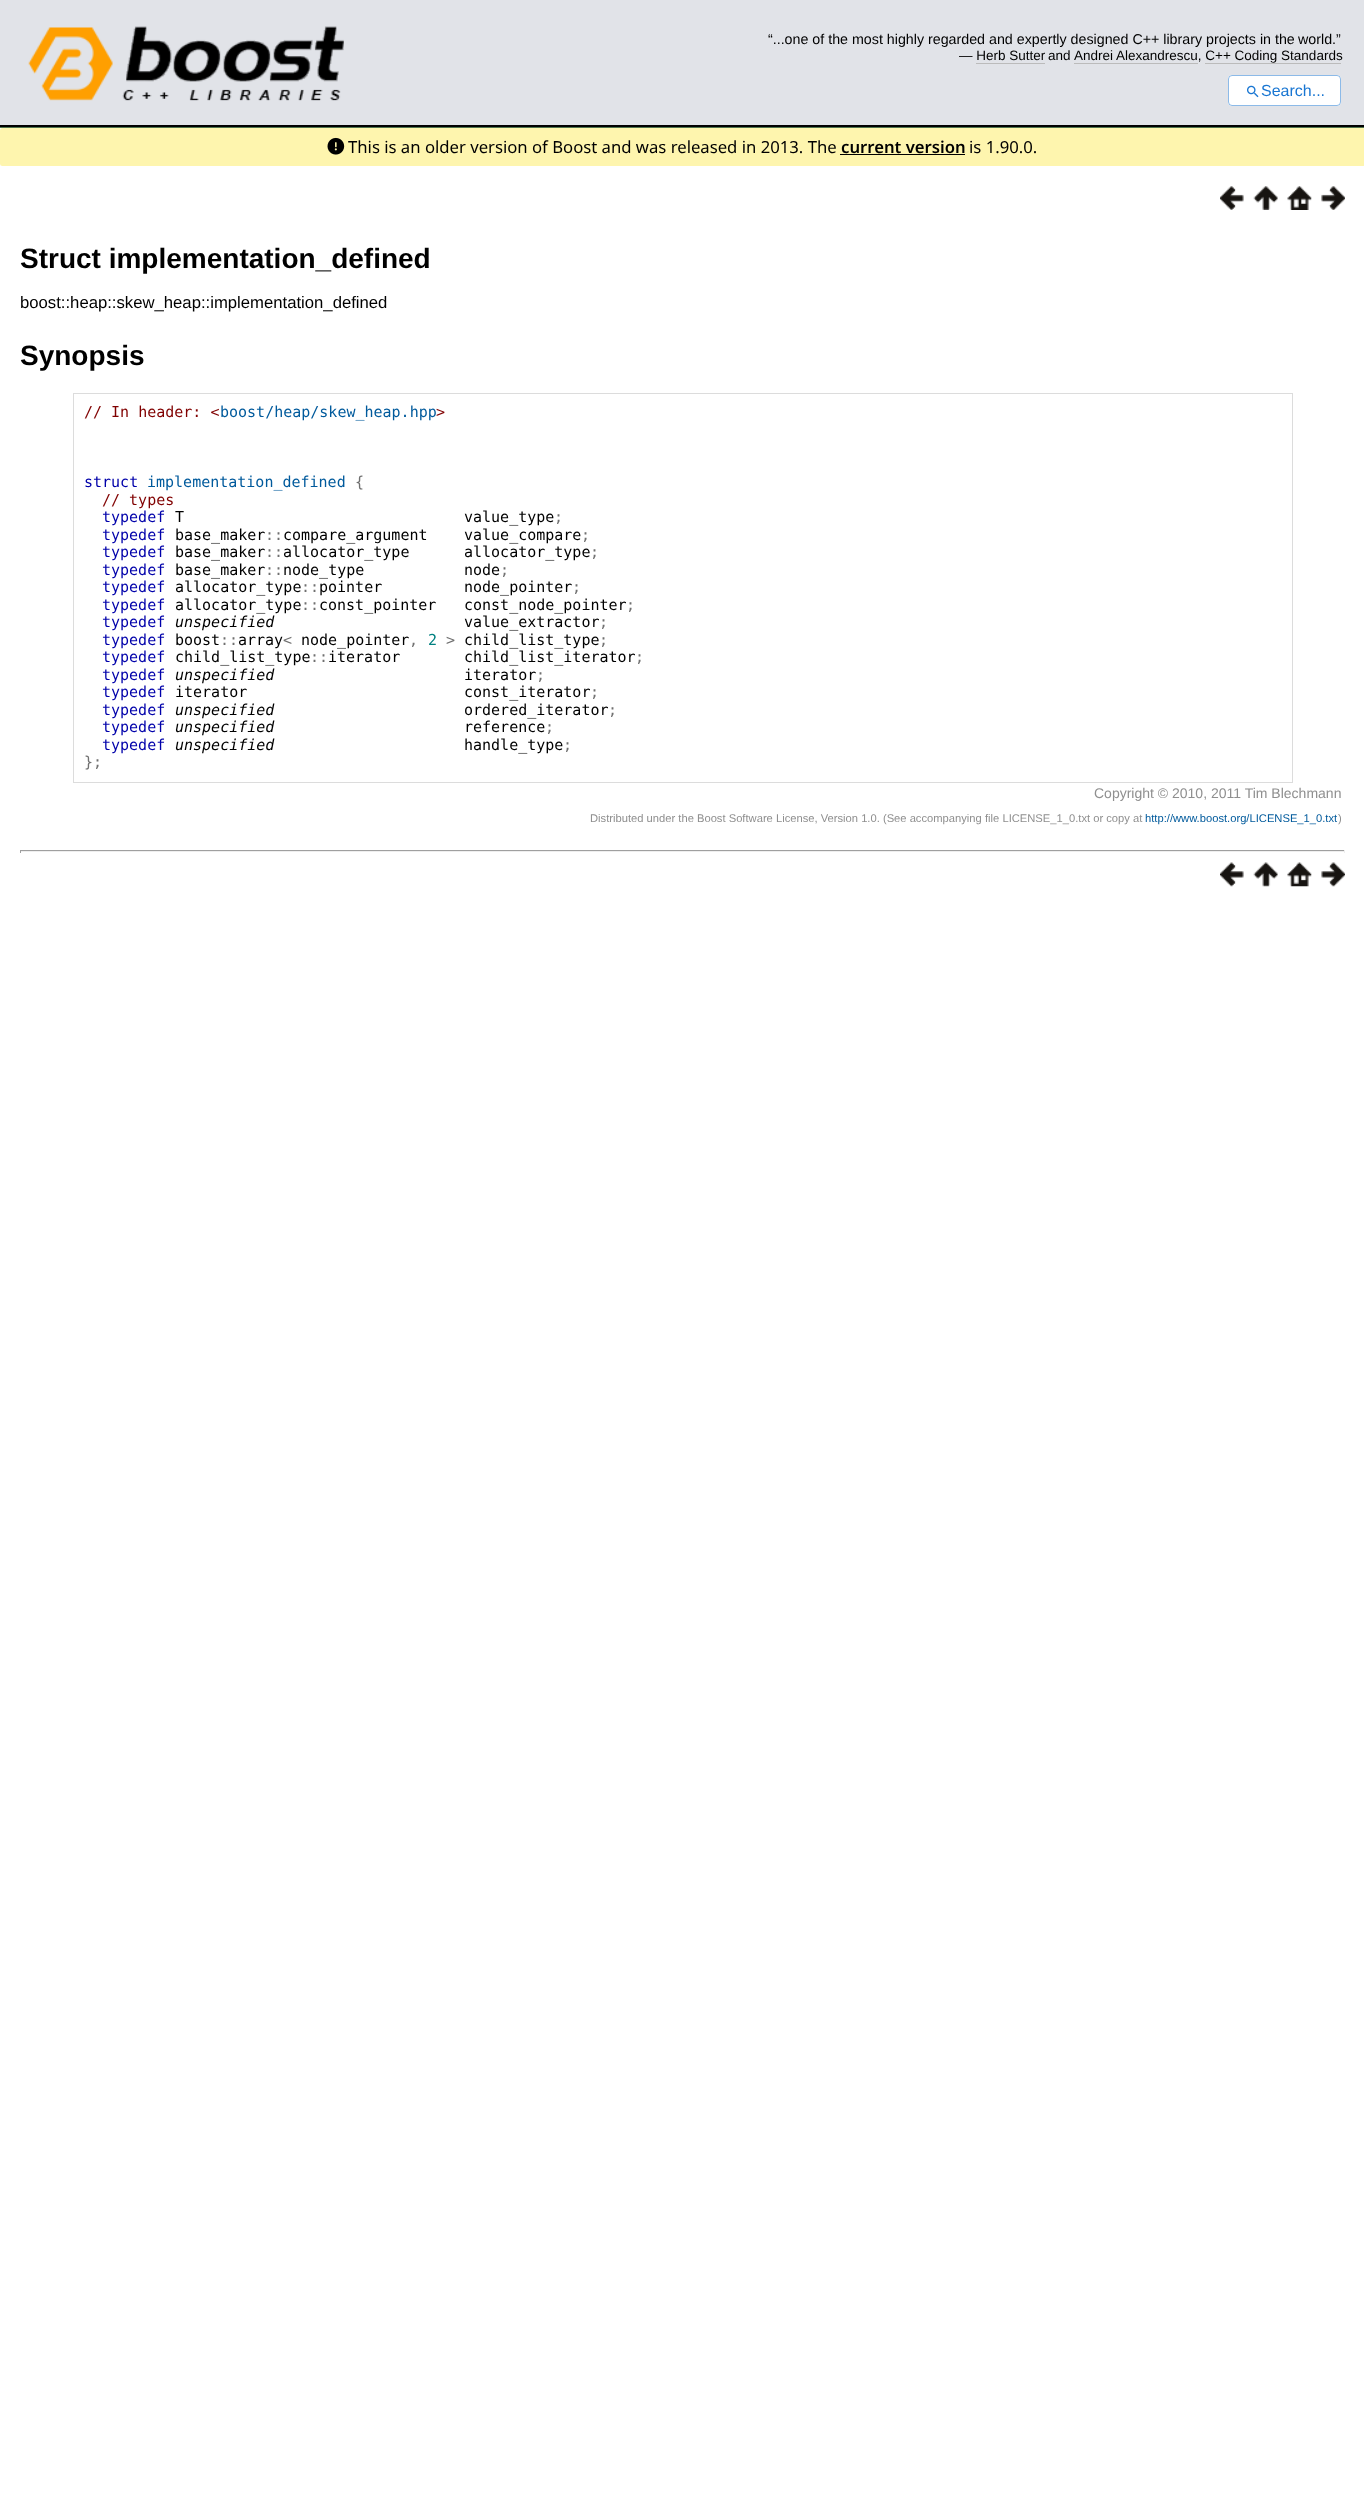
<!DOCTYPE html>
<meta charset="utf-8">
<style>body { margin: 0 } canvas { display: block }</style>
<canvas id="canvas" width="1364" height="2517"></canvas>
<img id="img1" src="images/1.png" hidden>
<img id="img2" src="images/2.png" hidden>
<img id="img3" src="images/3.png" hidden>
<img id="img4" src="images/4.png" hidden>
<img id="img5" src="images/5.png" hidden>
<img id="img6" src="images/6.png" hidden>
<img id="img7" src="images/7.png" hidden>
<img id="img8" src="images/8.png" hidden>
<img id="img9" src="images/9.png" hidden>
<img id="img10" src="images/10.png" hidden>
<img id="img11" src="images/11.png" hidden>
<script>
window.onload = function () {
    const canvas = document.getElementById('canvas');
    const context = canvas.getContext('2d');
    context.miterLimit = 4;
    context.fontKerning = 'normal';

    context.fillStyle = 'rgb(255, 255, 255)';
    context.fillRect(0, 0, 1364, 2517);
    context.fillStyle = 'rgb(79, 116, 77)';
    context.fillRect(0, 127, 1364, 1);
    context.fillStyle = 'rgb(225, 227, 232)';
    context.fillRect(0, 0, 1364, 125);
    context.fillStyle = 'rgb(0, 0, 0)';
    context.fillRect(0, 125, 1364, 2);
    context.drawImage(document.getElementById('img1'), 28, 26, 316, 75);
    context.fillStyle = 'rgb(187, 187, 187)';
    context.fillRect(1074, 63, 124, 1);
    context.fillRect(976, 63, 69, 1);
    context.fillRect(1205, 63, 136, 1);
    context.fillStyle = 'rgb(255, 255, 255)';
    context.beginPath();
    context.roundRect(1228, 75, 113, 31, 4);
    context.fill();
    context.beginPath();
    context.roundRect(1228.5, 75.5, 112, 30, 3.5);
    context.strokeStyle = 'rgba(25, 118, 210, 0.5)';
    context.stroke();
    context.drawImage(document.getElementById('img2'), 1247, 85, 12, 13);
    context.fillStyle = 'rgb(254, 245, 174)';
    context.beginPath();
    context.roundRect(0, 128, 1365, 38, 2.5);
    context.fill();
    context.drawImage(document.getElementById('img3'), 327, 137, 18, 18);
    context.fillStyle = 'rgb(0, 0, 0)';
    context.fillRect(840, 154, 125, 1);
    context.drawImage(document.getElementById('img4'), 1220, 186, 24, 24);
    context.drawImage(document.getElementById('img5'), 1253, 186, 25, 24);
    context.drawImage(document.getElementById('img6'), 1287, 186, 25, 24);
    context.drawImage(document.getElementById('img7'), 1321, 186, 24, 24);
    context.strokeStyle = 'rgb(220, 220, 220)';
    context.strokeRect(73.5, 393.5, 1219, 389);
    context.fillStyle = 'rgb(159, 159, 159)';
    context.fillRect(20, 850, 1325, 1);
    context.fillStyle = 'rgb(238, 238, 238)';
    context.fillRect(1344, 850, 1, 3);
    context.fillRect(20, 851, 1325, 1);
    context.fillStyle = 'rgb(159, 159, 159)';
    context.fillRect(20, 850, 1, 3);
    context.drawImage(document.getElementById('img8'), 1220, 862, 24, 25);
    context.drawImage(document.getElementById('img9'), 1253, 862, 25, 25);
    context.drawImage(document.getElementById('img10'), 1287, 862, 25, 25);
    context.drawImage(document.getElementById('img11'), 1321, 862, 24, 25);
    context.font = '14.25px Liberation Sans';
    context.fillStyle = 'rgb(0, 0, 0)';
    context.fillText('“...one of the most highly regarded and expertly designed C++ library projects in the', 768, 44);
    context.fillText('world.”', 1298, 44);
    context.font = '13.5px Liberation Sans';
    context.fillText('— Herb Sutter', 959, 60);
    context.fillText('and', 1048, 60);
    context.fillText('Andrei', 1074, 60);
    context.fillText('Alexandrescu, C++ Coding Standards', 1116, 60);
    context.font = '16px Liberation Sans';
    context.fillStyle = 'rgb(25, 118, 210)';
    context.fillText('Search...', 1261, 96);
    context.font = '16.7px Noto Sans';
    context.fillStyle = 'rgb(0, 0, 0)';
    context.fillText('This is an older version of Boost and was released in 2013. The', 348, 153);
    context.font = '600 16.7px Noto Sans';
    context.fillText('current version', 841, 153);
    context.font = '16.7px Noto Sans';
    context.fillText('is 1.90.0.', 969, 153);
    context.font = 'bold 28px Liberation Sans';
    context.fillText('Struct implementation_defined', 20, 268);
    context.font = '16.7px Liberation Sans';
    context.fillText('boost::heap::skew_heap::implementation_defined', 20, 308);
    context.font = 'bold 28px Liberation Sans';
    context.fillText('Synopsis', 20, 365);
    context.font = '15px DejaVu Sans Mono';
    context.fillStyle = 'rgb(128, 0, 0)';
    context.fillText('// In header: <', 84, 417);
    context.fillStyle = 'rgb(0, 90, 156)';
    context.fillText('boost/heap/skew_heap.hpp', 220, 417);
    context.fillStyle = 'rgb(128, 0, 0)';
    context.fillText('>', 436, 417);
    context.fillStyle = 'rgb(0, 0, 170)';
    context.fillText('struct', 84, 487);
    context.fillStyle = 'rgb(0, 90, 156)';
    context.fillText('implementation_defined', 147, 487);
    context.fillStyle = 'rgb(112, 112, 112)';
    context.fillText('{', 355, 487);
    context.fillStyle = 'rgb(128, 0, 0)';
    context.fillText('// types', 102, 505);
    context.fillStyle = 'rgb(0, 0, 170)';
    context.fillText('typedef', 102, 522);
    context.fillStyle = 'rgb(0, 0, 0)';
    context.fillText('T', 175, 522);
    context.fillText('value_type', 464, 522);
    context.fillStyle = 'rgb(112, 112, 112)';
    context.fillText(';', 554, 522);
    context.fillStyle = 'rgb(0, 0, 170)';
    context.fillText('typedef', 102, 540);
    context.fillStyle = 'rgb(0, 0, 0)';
    context.fillText('base_maker', 175, 540);
    context.fillStyle = 'rgb(112, 112, 112)';
    context.fillText('::', 265, 540);
    context.fillStyle = 'rgb(0, 0, 0)';
    context.fillText('compare_argument', 283, 540);
    context.fillText('value_compare', 464, 540);
    context.fillStyle = 'rgb(112, 112, 112)';
    context.fillText(';', 581, 540);
    context.fillStyle = 'rgb(0, 0, 170)';
    context.fillText('typedef', 102, 557);
    context.fillStyle = 'rgb(0, 0, 0)';
    context.fillText('base_maker', 175, 557);
    context.fillStyle = 'rgb(112, 112, 112)';
    context.fillText('::', 265, 557);
    context.fillStyle = 'rgb(0, 0, 0)';
    context.fillText('allocator_type', 283, 557);
    context.fillText('allocator_type', 464, 557);
    context.fillStyle = 'rgb(112, 112, 112)';
    context.fillText(';', 590, 557);
    context.fillStyle = 'rgb(0, 0, 170)';
    context.fillText('typedef', 102, 575);
    context.fillStyle = 'rgb(0, 0, 0)';
    context.fillText('base_maker', 175, 575);
    context.fillStyle = 'rgb(112, 112, 112)';
    context.fillText('::', 265, 575);
    context.fillStyle = 'rgb(0, 0, 0)';
    context.fillText('node_type', 283, 575);
    context.fillText('node', 464, 575);
    context.fillStyle = 'rgb(112, 112, 112)';
    context.fillText(';', 500, 575);
    context.fillStyle = 'rgb(0, 0, 170)';
    context.fillText('typedef', 102, 592);
    context.fillStyle = 'rgb(0, 0, 0)';
    context.fillText('allocator_type', 175, 592);
    context.fillStyle = 'rgb(112, 112, 112)';
    context.fillText('::', 301, 592);
    context.fillStyle = 'rgb(0, 0, 0)';
    context.fillText('pointer', 319, 592);
    context.fillText('node_pointer', 464, 592);
    context.fillStyle = 'rgb(112, 112, 112)';
    context.fillText(';', 572, 592);
    context.fillStyle = 'rgb(0, 0, 170)';
    context.fillText('typedef', 102, 610);
    context.fillStyle = 'rgb(0, 0, 0)';
    context.fillText('allocator_type', 175, 610);
    context.fillStyle = 'rgb(112, 112, 112)';
    context.fillText('::', 301, 610);
    context.fillStyle = 'rgb(0, 0, 0)';
    context.fillText('const_pointer', 319, 610);
    context.fillText('const_node_pointer', 464, 610);
    context.fillStyle = 'rgb(112, 112, 112)';
    context.fillText(';', 626, 610);
    context.fillStyle = 'rgb(0, 0, 170)';
    context.fillText('typedef', 102, 627);
    context.font = 'italic 15px DejaVu Sans Mono';
    context.fillStyle = 'rgb(0, 0, 0)';
    context.fillText('unspecified', 175, 627);
    context.font = '15px DejaVu Sans Mono';
    context.fillText('value_extractor', 464, 627);
    context.fillStyle = 'rgb(112, 112, 112)';
    context.fillText(';', 599, 627);
    context.fillStyle = 'rgb(0, 0, 170)';
    context.fillText('typedef', 102, 645);
    context.fillStyle = 'rgb(0, 0, 0)';
    context.fillText('boost', 175, 645);
    context.fillStyle = 'rgb(112, 112, 112)';
    context.fillText('::', 220, 645);
    context.fillStyle = 'rgb(0, 0, 0)';
    context.fillText('array', 238, 645);
    context.fillStyle = 'rgb(112, 112, 112)';
    context.fillText('<', 283, 645);
    context.fillStyle = 'rgb(0, 0, 0)';
    context.fillText('node_pointer', 301, 645);
    context.fillStyle = 'rgb(112, 112, 112)';
    context.fillText(',', 409, 645);
    context.fillStyle = 'rgb(0, 128, 128)';
    context.fillText('2', 428, 645);
    context.fillStyle = 'rgb(112, 112, 112)';
    context.fillText('>', 446, 645);
    context.fillStyle = 'rgb(0, 0, 0)';
    context.fillText('child_list_type', 464, 645);
    context.fillStyle = 'rgb(112, 112, 112)';
    context.fillText(';', 599, 645);
    context.fillStyle = 'rgb(0, 0, 170)';
    context.fillText('typedef', 102, 662);
    context.fillStyle = 'rgb(0, 0, 0)';
    context.fillText('child_list_type', 175, 662);
    context.fillStyle = 'rgb(112, 112, 112)';
    context.fillText('::', 310, 662);
    context.fillStyle = 'rgb(0, 0, 0)';
    context.fillText('iterator', 328, 662);
    context.fillText('child_list_iterator', 464, 662);
    context.fillStyle = 'rgb(112, 112, 112)';
    context.fillText(';', 635, 662);
    context.fillStyle = 'rgb(0, 0, 170)';
    context.fillText('typedef', 102, 680);
    context.font = 'italic 15px DejaVu Sans Mono';
    context.fillStyle = 'rgb(0, 0, 0)';
    context.fillText('unspecified', 175, 680);
    context.font = '15px DejaVu Sans Mono';
    context.fillText('iterator', 464, 680);
    context.fillStyle = 'rgb(112, 112, 112)';
    context.fillText(';', 536, 680);
    context.fillStyle = 'rgb(0, 0, 170)';
    context.fillText('typedef', 102, 697);
    context.fillStyle = 'rgb(0, 0, 0)';
    context.fillText('iterator', 175, 697);
    context.fillText('const_iterator', 464, 697);
    context.fillStyle = 'rgb(112, 112, 112)';
    context.fillText(';', 590, 697);
    context.fillStyle = 'rgb(0, 0, 170)';
    context.fillText('typedef', 102, 715);
    context.font = 'italic 15px DejaVu Sans Mono';
    context.fillStyle = 'rgb(0, 0, 0)';
    context.fillText('unspecified', 175, 715);
    context.font = '15px DejaVu Sans Mono';
    context.fillText('ordered_iterator', 464, 715);
    context.fillStyle = 'rgb(112, 112, 112)';
    context.fillText(';', 608, 715);
    context.fillStyle = 'rgb(0, 0, 170)';
    context.fillText('typedef', 102, 732);
    context.font = 'italic 15px DejaVu Sans Mono';
    context.fillStyle = 'rgb(0, 0, 0)';
    context.fillText('unspecified', 175, 732);
    context.font = '15px DejaVu Sans Mono';
    context.fillText('reference', 464, 732);
    context.fillStyle = 'rgb(112, 112, 112)';
    context.fillText(';', 545, 732);
    context.fillStyle = 'rgb(0, 0, 170)';
    context.fillText('typedef', 102, 750);
    context.font = 'italic 15px DejaVu Sans Mono';
    context.fillStyle = 'rgb(0, 0, 0)';
    context.fillText('unspecified', 175, 750);
    context.font = '15px DejaVu Sans Mono';
    context.fillText('handle_type', 464, 750);
    context.fillStyle = 'rgb(112, 112, 112)';
    context.fillText(';', 563, 750);
    context.fillText('};', 84, 767);
    context.font = '14px Liberation Sans';
    context.fillStyle = 'rgb(143, 143, 143)';
    context.fillText('Copyright © 2010, 2011 Tim Blechmann', 1094, 798);
    context.font = '11.2px Liberation Sans';
    context.fillText('Distributed under the Boost Software License, Version 1.0. (See accompanying', 590, 822);
    context.fillText('file LICENSE_1_0.txt or copy at', 985, 822);
    context.fillStyle = 'rgb(0, 90, 156)';
    context.fillText('http://www.boost.org/LICENSE_1_0.txt', 1145, 822);
    context.fillStyle = 'rgb(143, 143, 143)';
    context.fillText(')', 1338, 822);
};
</script>
